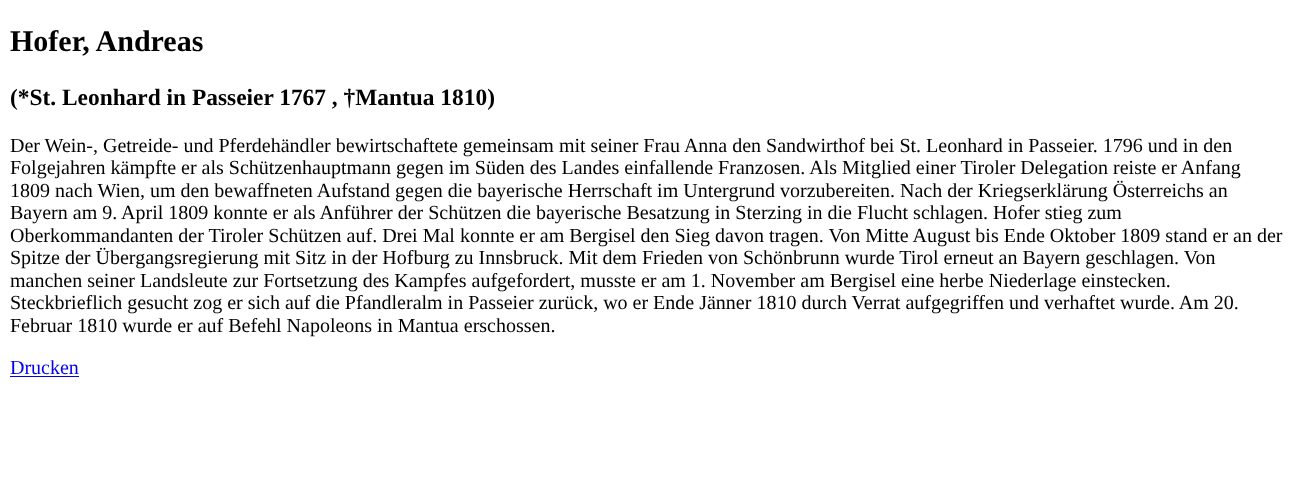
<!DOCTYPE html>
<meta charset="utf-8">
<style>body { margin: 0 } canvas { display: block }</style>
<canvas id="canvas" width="1293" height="480"></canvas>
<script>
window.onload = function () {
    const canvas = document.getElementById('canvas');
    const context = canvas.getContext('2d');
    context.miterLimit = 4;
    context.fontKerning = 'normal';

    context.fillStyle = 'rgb(255, 255, 255)';
    context.fillRect(0, 0, 1293, 480);
    context.fillStyle = 'rgb(0, 0, 238)';
    context.fillRect(10, 376, 69, 1);
    context.font = 'bold 30px Liberation Serif';
    context.fillStyle = 'rgb(0, 0, 0)';
    context.fillText('Hofer, Andreas', 10, 51);
    context.font = 'bold 23.4px Liberation Serif';
    context.fillText('(*St. Leonhard in Passeier 1767 , †Mantua 1810)', 10, 105);
    context.font = '20px Liberation Serif';
    context.fillText('Der Wein-, Getreide- und Pferdehändler bewirtschaftete gemeinsam mit seiner Frau Anna den Sandwirthof bei St. Leonhard in Passeier. 1796 und in den', 10, 152);
    context.fillText('Folgejahren kämpfte er als Schützenhauptmann gegen im Süden des Landes einfallende Franzosen. Als Mitglied einer Tiroler Delegation reiste er Anfang', 10, 174);
    context.fillText('1809 nach Wien, um den bewaffneten Aufstand gegen die bayerische Herrschaft im Untergrund vorzubereiten. Nach der Kriegserklärung Österreichs an', 10, 197);
    context.fillText('Bayern am 9. April 1809 konnte er als Anführer der Schützen die bayerische Besatzung in Sterzing in die Flucht schlagen. Hofer stieg zum', 10, 219);
    context.fillText('Oberkommandanten der Tiroler Schützen auf. Drei Mal konnte er am Bergisel den Sieg davon tragen. Von Mitte August bis Ende Oktober 1809 stand er an der', 10, 242);
    context.fillText('Spitze der Übergangsregierung mit Sitz in der Hofburg zu Innsbruck. Mit dem Frieden von Schönbrunn wurde Tirol erneut an Bayern geschlagen. Von', 10, 264);
    context.fillText('manchen seiner Landsleute zur Fortsetzung des Kampfes aufgefordert, musste er am 1. November am Bergisel eine herbe Niederlage einstecken.', 10, 287);
    context.fillText('Steckbrieflich gesucht zog er sich auf die Pfandleralm in Passeier zurück, wo er Ende Jänner 1810 durch Verrat aufgegriffen und verhaftet wurde. Am 20.', 10, 309);
    context.fillText('Februar 1810 wurde er auf Befehl Napoleons in Mantua erschossen.', 10, 332);
    context.fillStyle = 'rgb(0, 0, 238)';
    context.fillText('Drucken', 10, 374);
};
</script>
